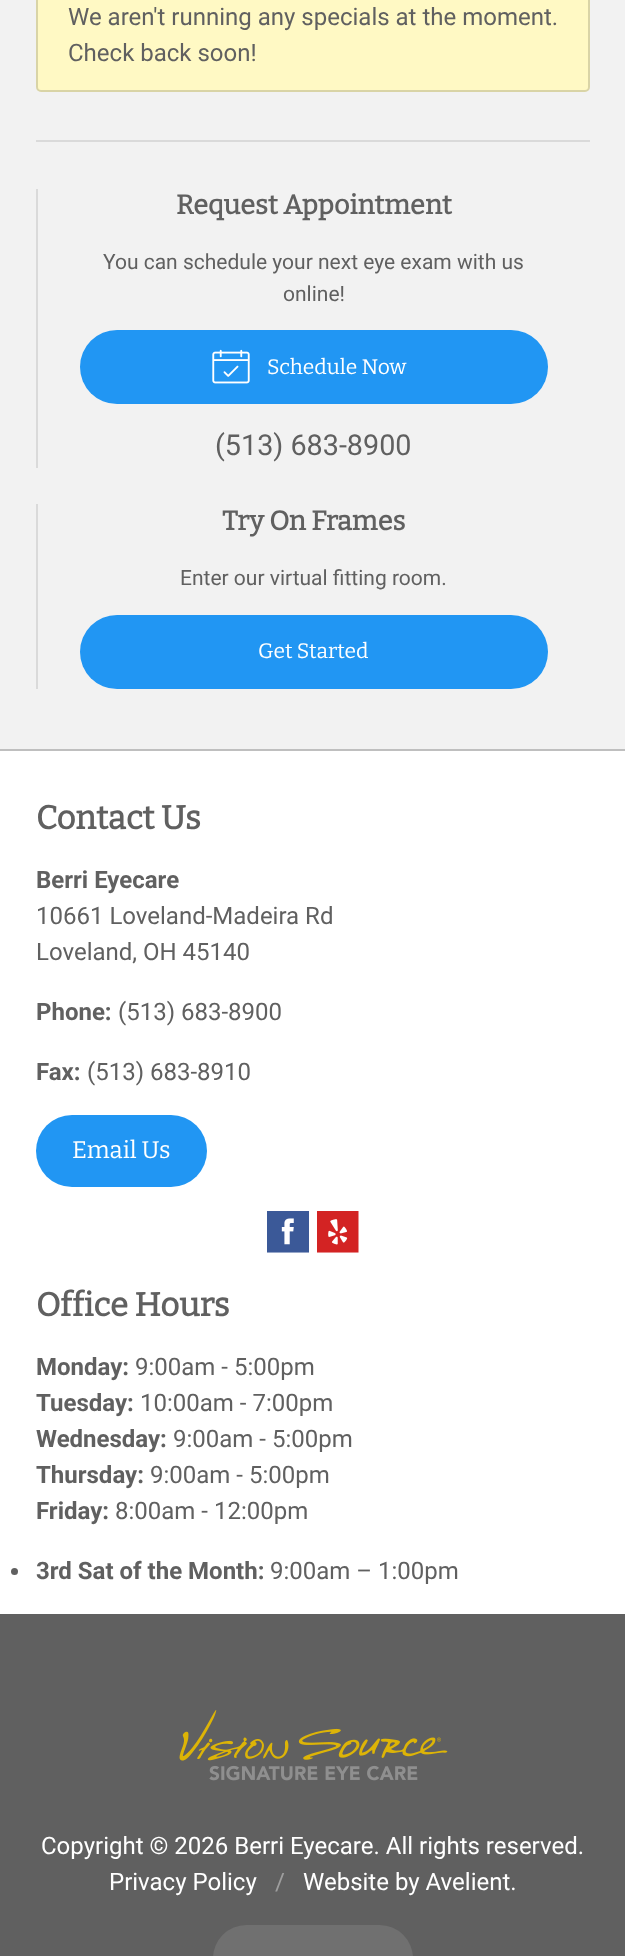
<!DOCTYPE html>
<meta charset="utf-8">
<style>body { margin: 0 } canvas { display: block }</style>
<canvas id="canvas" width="625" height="1956"></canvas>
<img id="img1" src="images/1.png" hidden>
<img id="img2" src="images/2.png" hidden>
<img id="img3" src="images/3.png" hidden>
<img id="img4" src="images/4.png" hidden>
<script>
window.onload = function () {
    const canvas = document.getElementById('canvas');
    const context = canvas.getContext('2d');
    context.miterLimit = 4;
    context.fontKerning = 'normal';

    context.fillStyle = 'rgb(255, 255, 255)';
    context.fillRect(0, 0, 625, 1956);
    context.fillStyle = 'rgb(242, 242, 242)';
    context.fillRect(0, 0, 625, 749);
    context.fillStyle = 'rgb(218, 218, 218)';
    context.fillRect(36, 140, 554, 2);
    context.fillStyle = 'rgb(255, 249, 196)';
    context.beginPath();
    context.roundRect(36, -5, 554, 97, 5);
    context.fill();
    context.beginPath();
    context.roundRect(37, -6, 552, 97, 4);
    context.strokeStyle = 'rgba(0, 0, 0, 0.15)';
    context.lineWidth = 2;
    context.stroke();
    context.fillStyle = 'rgb(218, 218, 218)';
    context.fillRect(36, 189, 2, 279);
    context.fillStyle = 'rgb(33, 150, 243)';
    context.beginPath();
    context.roundRect(80, 330, 468, 74, 37);
    context.fill();
    context.drawImage(document.getElementById('img1'), 212, 349, 38, 35);
    context.fillStyle = 'rgb(218, 218, 218)';
    context.fillRect(36, 504, 2, 185);
    context.fillStyle = 'rgb(33, 150, 243)';
    context.beginPath();
    context.roundRect(80, 615, 468, 74, 37);
    context.fill();
    context.fillStyle = 'rgb(191, 191, 191)';
    context.fillRect(0, 749, 625, 2);
    context.fillStyle = 'rgb(33, 150, 243)';
    context.beginPath();
    context.roundRect(36, 1115, 171, 72, 36);
    context.fill();
    context.drawImage(document.getElementById('img2'), 267, 1211, 42, 42);
    context.drawImage(document.getElementById('img3'), 317, 1211, 42, 42);
    context.fillStyle = 'rgb(96, 96, 96)';
    context.beginPath();
    context.arc(14.5, 1571.5, 3.5, 0, 2 * Math.PI);
    context.fill();
    context.fillRect(0, 1614, 625, 342);
    context.drawImage(document.getElementById('img4'), 179, 1710, 269, 71);
    context.fillStyle = 'rgb(112, 112, 112)';
    context.beginPath();
    context.roundRect(213, 1925, 200, 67, 36);
    context.fill();
    context.font = '24px Roboto';
    context.fillStyle = 'rgb(96, 96, 96)';
    context.fillText('We aren\'t running any specials at the moment.', 68, 25);
    context.fillText('Check back soon!', 68, 61);
    context.font = 'bold 27px Bitter';
    context.fillText('Request Appointment', 176, 214);
    context.font = '21px Roboto';
    context.fillText('You can schedule your next eye exam with us', 103, 269);
    context.fillText('online!', 283, 301);
    context.font = '100 21px Bitter';
    context.fillStyle = 'rgb(255, 255, 255)';
    context.fillText('Schedule Now', 267, 374);
    context.font = '28.75px Roboto';
    context.fillStyle = 'rgb(96, 96, 96)';
    context.fillText('(513) 683-8900', 215, 455);
    context.font = 'bold 27px Bitter';
    context.fillText('Try On Frames', 222, 530);
    context.font = '21px Roboto';
    context.fillText('Enter our virtual fitting room.', 180, 585);
    context.font = '100 21px Bitter';
    context.fillStyle = 'rgb(255, 255, 255)';
    context.fillText('Get Started', 258, 658);
    context.font = 'bold 33px Bitter';
    context.fillStyle = 'rgb(96, 96, 96)';
    context.fillText('Contact Us', 36, 829);
    context.font = 'bold 24px Roboto';
    context.fillText('Berri Eyecare', 36, 888);
    context.font = '24px Roboto';
    context.fillText('10661 Loveland-Madeira Rd', 36, 924);
    context.fillText('Loveland, OH 45140', 36, 960);
    context.font = 'bold 24px Roboto';
    context.fillText('Phone:', 36, 1020);
    context.font = '24px Roboto';
    context.fillText('(513) 683-8900', 118, 1020);
    context.font = 'bold 24px Roboto';
    context.fillText('Fax:', 36, 1080);
    context.font = '24px Roboto';
    context.fillText('(513) 683-8910', 87, 1080);
    context.font = '100 24px Bitter';
    context.fillStyle = 'rgb(255, 255, 255)';
    context.fillText('Email Us', 72, 1158);
    context.font = 'bold 33px Bitter';
    context.fillStyle = 'rgb(96, 96, 96)';
    context.fillText('Office Hours', 36, 1316);
    context.font = 'bold 24px Roboto';
    context.fillText('Monday:', 36, 1375);
    context.font = '24px Roboto';
    context.fillText('9:00am - 5:00pm', 135, 1375);
    context.font = 'bold 24px Roboto';
    context.fillText('Tuesday:', 36, 1411);
    context.font = '24px Roboto';
    context.fillText('10:00am - 7:00pm', 140, 1411);
    context.font = 'bold 24px Roboto';
    context.fillText('Wednesday:', 36, 1447);
    context.font = '24px Roboto';
    context.fillText('9:00am - 5:00pm', 173, 1447);
    context.font = 'bold 24px Roboto';
    context.fillText('Thursday:', 36, 1483);
    context.font = '24px Roboto';
    context.fillText('9:00am - 5:00pm', 150, 1483);
    context.font = 'bold 24px Roboto';
    context.fillText('Friday:', 36, 1519);
    context.font = '24px Roboto';
    context.fillText('8:00am - 12:00pm', 115, 1519);
    context.font = 'bold 24px Roboto';
    context.fillText('3rd Sat of the Month:', 36, 1579);
    context.font = '24px Roboto';
    context.fillText('9:00am – 1:00pm', 270, 1579);
    context.fillStyle = 'rgb(255, 255, 255)';
    context.fillText('Copyright © 2026 Berri Eyecare. All rights reserved.', 41, 1854);
    context.fillText('Privacy Policy', 109, 1890);
    context.fillStyle = 'rgb(158, 158, 158)';
    context.fillText('/', 275, 1890);
    context.fillStyle = 'rgb(255, 255, 255)';
    context.fillText('Website by Avelient.', 303, 1890);
};
</script>
